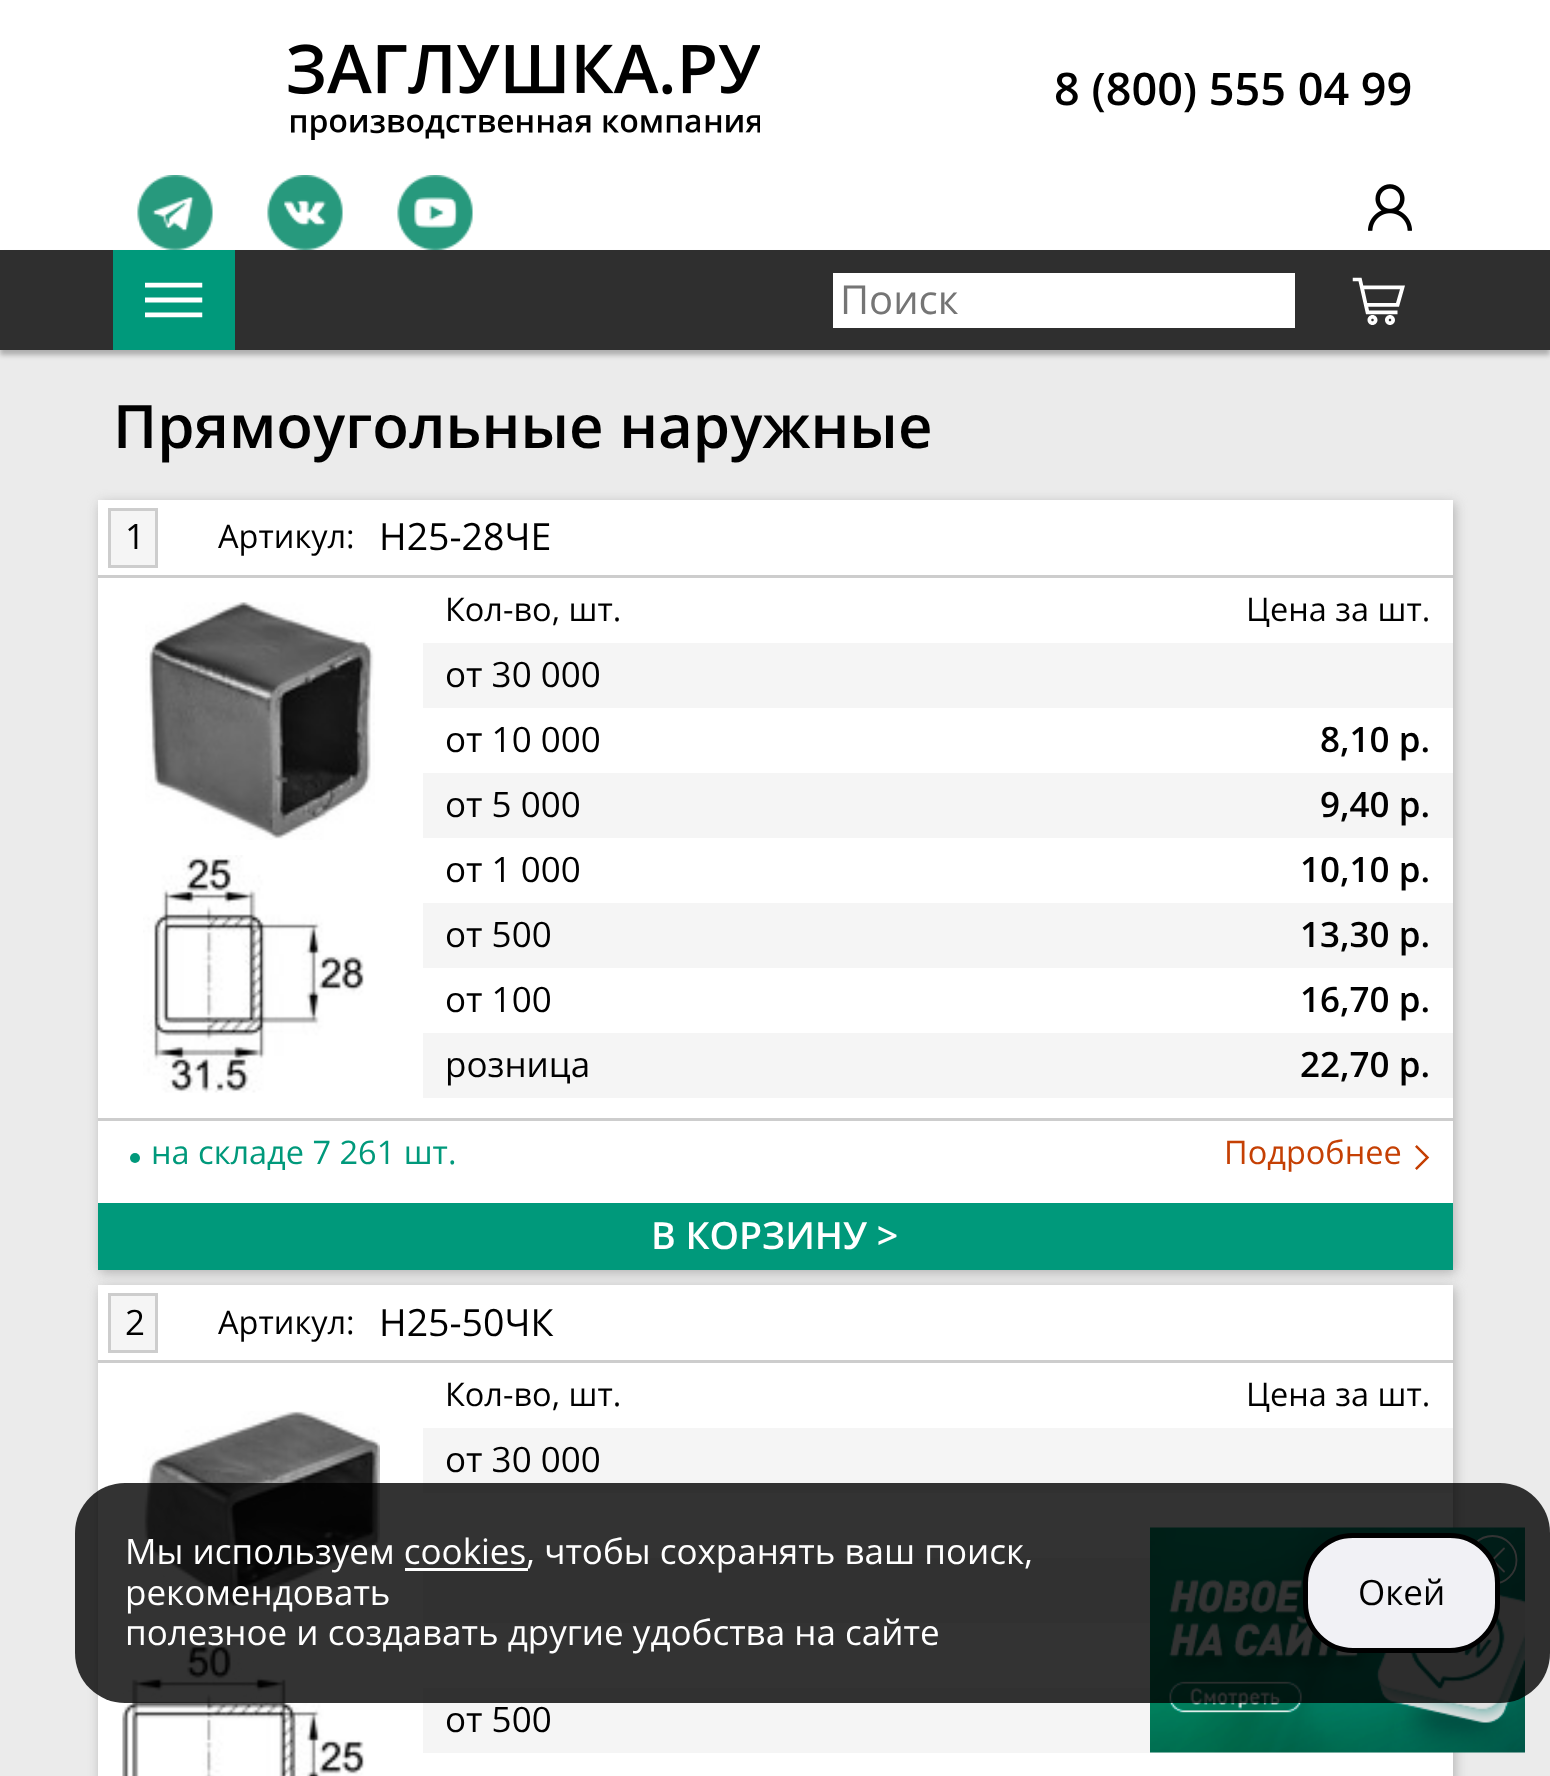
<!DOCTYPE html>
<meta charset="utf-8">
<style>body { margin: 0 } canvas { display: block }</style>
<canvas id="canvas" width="1550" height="1776"></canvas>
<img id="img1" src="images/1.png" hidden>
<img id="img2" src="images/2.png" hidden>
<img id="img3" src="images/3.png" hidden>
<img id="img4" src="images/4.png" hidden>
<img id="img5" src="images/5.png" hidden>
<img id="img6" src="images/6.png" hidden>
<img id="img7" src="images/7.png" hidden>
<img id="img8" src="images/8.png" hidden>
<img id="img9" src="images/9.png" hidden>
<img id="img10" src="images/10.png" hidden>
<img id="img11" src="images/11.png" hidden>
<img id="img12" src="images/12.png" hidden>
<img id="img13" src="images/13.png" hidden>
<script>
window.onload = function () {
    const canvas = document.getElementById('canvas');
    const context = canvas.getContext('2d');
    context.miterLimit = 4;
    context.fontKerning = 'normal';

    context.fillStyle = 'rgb(235, 235, 235)';
    context.fillRect(0, 0, 1550, 1776);
    context.fillStyle = 'rgb(255, 255, 255)';
    context.fillRect(0, 0, 1550, 250);
    context.drawImage(document.getElementById('img1'), 288, 44, 472, 96);
    context.fillStyle = 'rgba(0, 0, 0, 0.26)';
    context.filter = 'blur(2.5px)';
    context.beginPath();
    context.rect(0, 255, 1550, 100);
    context.fill();
    context.filter = 'none';
    context.drawImage(document.getElementById('img2'), 137, 175, 76, 75);
    context.drawImage(document.getElementById('img3'), 267, 175, 76, 75);
    context.drawImage(document.getElementById('img4'), 397, 175, 76, 75);
    context.drawImage(document.getElementById('img5'), 1368, 184, 44, 47);
    context.fillStyle = 'rgb(47, 47, 47)';
    context.fillRect(0, 250, 1550, 100);
    context.fillStyle = 'rgb(0, 153, 123)';
    context.fillRect(113, 250, 122, 100);
    context.drawImage(document.getElementById('img6'), 145, 282, 58, 36);
    context.fillStyle = 'rgb(255, 255, 255)';
    context.fillRect(833, 273, 462, 55);
    context.drawImage(document.getElementById('img7'), 1352, 277, 53, 48);
    context.fillStyle = 'rgb(178, 178, 178)';
    context.filter = 'blur(6px)';
    context.beginPath();
    context.rect(100, 503, 1355, 770);
    context.fill();
    context.filter = 'none';
    context.fillStyle = 'rgb(255, 255, 255)';
    context.fillRect(98, 500, 1355, 703);
    context.fillStyle = 'rgb(205, 205, 205)';
    context.fillRect(98, 575, 1355, 3);
    context.fillStyle = 'rgb(245, 245, 245)';
    context.beginPath();
    context.rect(109.5, 509.5, 47, 57);
    context.fill();
    context.strokeStyle = 'rgb(205, 205, 205)';
    context.lineWidth = 3;
    context.stroke();
    context.fillStyle = 'rgb(205, 205, 205)';
    context.fillRect(98, 1118, 1355, 3);
    context.drawImage(document.getElementById('img8'), 145, 602, 230, 238);
    context.drawImage(document.getElementById('img9'), 143, 855, 221, 238);
    context.fillStyle = 'rgb(245, 245, 245)';
    context.fillRect(423, 643, 1030, 65);
    context.fillRect(423, 773, 1030, 65);
    context.fillRect(423, 903, 1030, 65);
    context.fillRect(423, 1033, 1030, 65);
    context.fillStyle = 'rgb(0, 153, 123)';
    context.beginPath();
    context.arc(135, 1158, 5, 0, 2 * Math.PI);
    context.fill();
    context.drawImage(document.getElementById('img10'), 1415, 1145, 15, 25);
    context.fillStyle = 'rgb(178, 178, 178)';
    context.filter = 'blur(6px)';
    context.beginPath();
    context.rect(100, 1288, 1355, 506);
    context.fill();
    context.filter = 'none';
    context.fillStyle = 'rgb(0, 153, 123)';
    context.fillRect(98, 1203, 1355, 67);
    context.fillStyle = 'rgb(255, 255, 255)';
    context.fillRect(98, 1285, 1355, 491);
    context.fillStyle = 'rgb(205, 205, 205)';
    context.fillRect(98, 1360, 1355, 3);
    context.fillStyle = 'rgb(245, 245, 245)';
    context.beginPath();
    context.rect(109.5, 1294.5, 47, 57);
    context.fill();
    context.stroke();
    context.drawImage(document.getElementById('img11'), 142, 1411, 238, 195);
    context.drawImage(document.getElementById('img12'), 122, 1640, 244, 136);
    context.fillRect(423, 1428, 1030, 65);
    context.fillRect(423, 1558, 727, 65);
    context.fillRect(423, 1688, 1030, 65);
    context.drawImage(document.getElementById('img13'), 1150, 1527, 375, 226);
    context.beginPath();
    context.arc(1492.5, 1560, 24, 0, 2 * Math.PI);
    context.strokeStyle = 'rgb(255, 255, 255)';
    context.lineWidth = 1.8;
    context.stroke();
    context.beginPath();
    context.moveTo(1481, 1548.5);
    context.lineTo(1504, 1571.5);
    context.moveTo(1504, 1548.5);
    context.lineTo(1481, 1571.5);
    context.lineCap = 'round';
    context.stroke();
    context.fillStyle = 'rgba(0, 0, 0, 0.8)';
    context.beginPath();
    context.roundRect(75, 1483, 1475, 220, 50);
    context.fill();
    context.fillStyle = 'rgb(255, 255, 255)';
    context.fillRect(405, 1568, 123, 3);
    context.fillStyle = 'rgb(241, 241, 245)';
    context.beginPath();
    context.roundRect(1305.5, 1535.5, 192, 115, 47.5);
    context.fill();
    context.strokeStyle = 'rgb(0, 0, 0)';
    context.lineWidth = 5;
    context.stroke();
    context.font = '600 45px Open Sans';
    context.fillStyle = 'rgb(0, 0, 0)';
    context.fillText('8 (800) 555 04 99', 1054, 105);
    context.font = '40px Open Sans';
    context.fillStyle = 'rgb(117, 117, 117)';
    context.fillText('Поиск', 840, 314);
    context.font = '600 60px Open Sans';
    context.fillStyle = 'rgb(0, 0, 0)';
    context.fillText('Прямоугольные наружные', 113, 448);
    context.font = '35px Open Sans';
    context.fillText('1', 125, 549);
    context.font = '32.5px Open Sans';
    context.fillText('Артикул:', 218, 548);
    context.font = '37.5px Open Sans';
    context.fillText('Н25-28ЧЕ', 379, 550);
    context.font = '32.5px Open Sans';
    context.fillText('Кол-во, шт.', 445, 621);
    context.fillText('Цена за шт.', 1246, 621);
    context.font = '35px Open Sans';
    context.fillText('от 30 000', 445, 687);
    context.fillText('от 10 000', 445, 752);
    context.font = '600 35px Open Sans';
    context.fillText('8,10 р.', 1320, 752);
    context.font = '35px Open Sans';
    context.fillText('от 5 000', 445, 817);
    context.font = '600 35px Open Sans';
    context.fillText('9,40 р.', 1320, 817);
    context.font = '35px Open Sans';
    context.fillText('от 1 000', 445, 882);
    context.font = '600 35px Open Sans';
    context.fillText('10,10 р.', 1300, 882);
    context.font = '35px Open Sans';
    context.fillText('от 500', 445, 947);
    context.font = '600 35px Open Sans';
    context.fillText('13,30 р.', 1300, 947);
    context.font = '35px Open Sans';
    context.fillText('от 100', 445, 1012);
    context.font = '600 35px Open Sans';
    context.fillText('16,70 р.', 1300, 1012);
    context.font = '35px Open Sans';
    context.fillText('розница', 445, 1077);
    context.font = '600 35px Open Sans';
    context.fillText('22,70 р.', 1300, 1077);
    context.font = '32.5px Open Sans';
    context.fillStyle = 'rgb(0, 153, 123)';
    context.fillText('на складе 7 261 шт.', 151, 1164);
    context.fillStyle = 'rgb(197, 64, 4)';
    context.fillText('Подробнее', 1224, 1164);
    context.font = '600 37.5px Open Sans';
    context.fillStyle = 'rgb(255, 255, 255)';
    context.fillText('В КОРЗИНУ >', 651, 1249);
    context.font = '35px Open Sans';
    context.fillStyle = 'rgb(0, 0, 0)';
    context.fillText('2', 125, 1335);
    context.font = '32.5px Open Sans';
    context.fillText('Артикул:', 218, 1334);
    context.font = '37.5px Open Sans';
    context.fillText('Н25-50ЧК', 379, 1336);
    context.font = '32.5px Open Sans';
    context.fillText('Кол-во, шт.', 445, 1406);
    context.fillText('Цена за шт.', 1246, 1406);
    context.font = '35px Open Sans';
    context.fillText('от 30 000', 445, 1472);
    context.fillText('от 500', 445, 1732);
    context.fillStyle = 'rgb(255, 255, 255)';
    context.fillText('Мы используем cookies', 125, 1564);
    context.fillText(', чтобы сохранять ваш поиск,', 526, 1564);
    context.fillText('рекомендовать', 125, 1605);
    context.fillText('полезное и создавать другие удобства на сайте', 125, 1645);
    context.fillStyle = 'rgb(0, 0, 0)';
    context.fillText('Окей', 1358, 1605);
};
</script>
